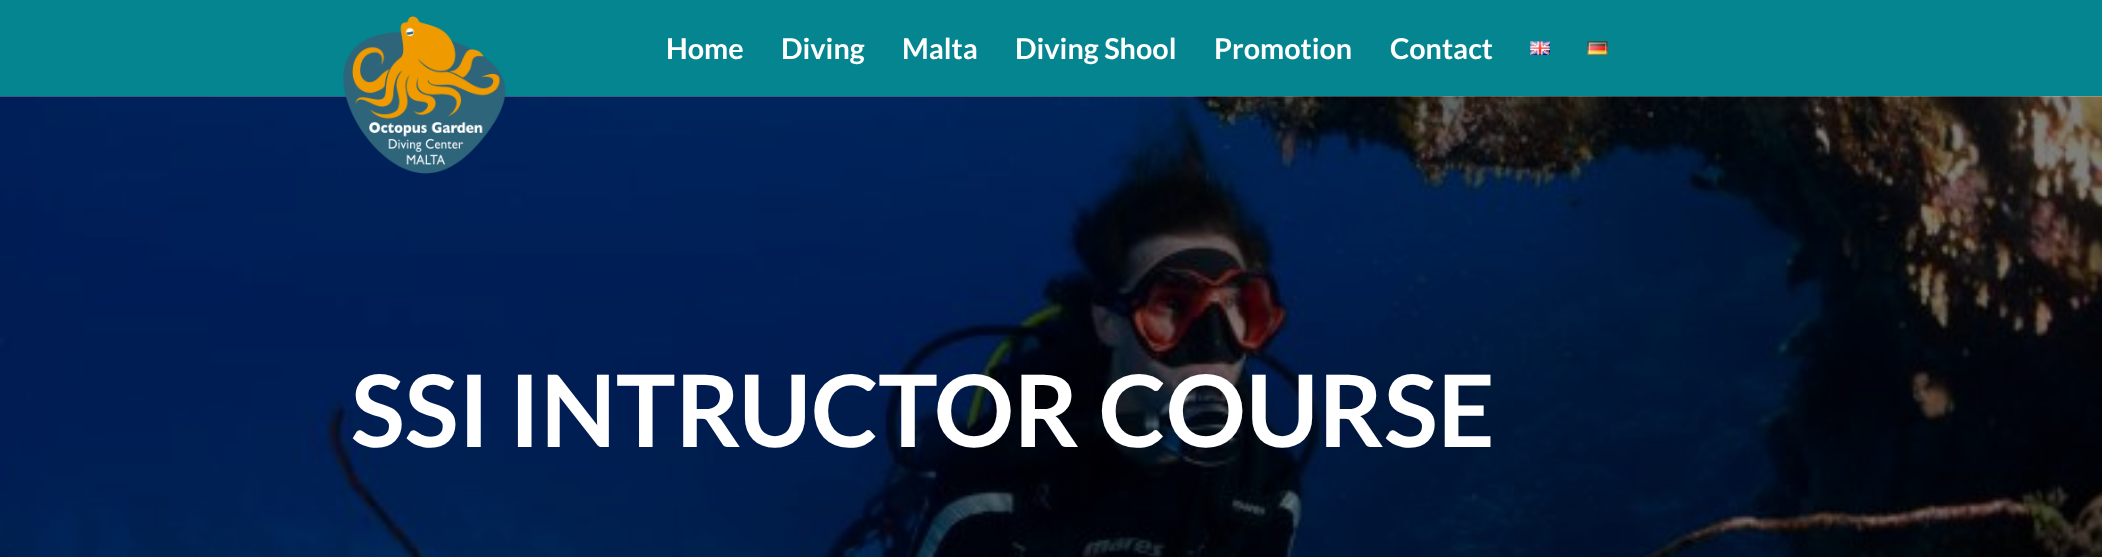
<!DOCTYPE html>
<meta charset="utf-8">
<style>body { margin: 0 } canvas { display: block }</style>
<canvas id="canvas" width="2102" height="557"></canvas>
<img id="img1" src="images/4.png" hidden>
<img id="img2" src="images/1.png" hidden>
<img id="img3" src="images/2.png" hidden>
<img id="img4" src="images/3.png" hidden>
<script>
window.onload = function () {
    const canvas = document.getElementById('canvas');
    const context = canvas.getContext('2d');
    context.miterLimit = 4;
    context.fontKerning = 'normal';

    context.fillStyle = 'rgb(255, 255, 255)';
    context.fillRect(0, 0, 2102, 557);
    context.fillStyle = 'rgb(5, 133, 144)';
    context.fillRect(0, 0, 2102, 96);
    context.drawImage(document.getElementById('img1'), 0, 96, 2102, 461);
    context.drawImage(document.getElementById('img2'), 343, 16, 163, 158);
    context.drawImage(document.getElementById('img3'), 1530, 41, 20, 14);
    context.drawImage(document.getElementById('img4'), 1587, 41, 21, 14);
    context.font = 'bold 28.75px Lato';
    context.fillStyle = 'rgb(255, 255, 255)';
    context.fillText('Home', 666, 59);
    context.fillText('Diving', 781, 59);
    context.fillText('Malta', 902, 59);
    context.fillText('Diving Shool', 1015, 59);
    context.fillText('Promotion', 1214, 59);
    context.fillText('Contact', 1390, 59);
    context.font = 'bold 100px Lato';
    context.fillText('SSI INTRUCTOR COURSE', 351, 447);
};
</script>
